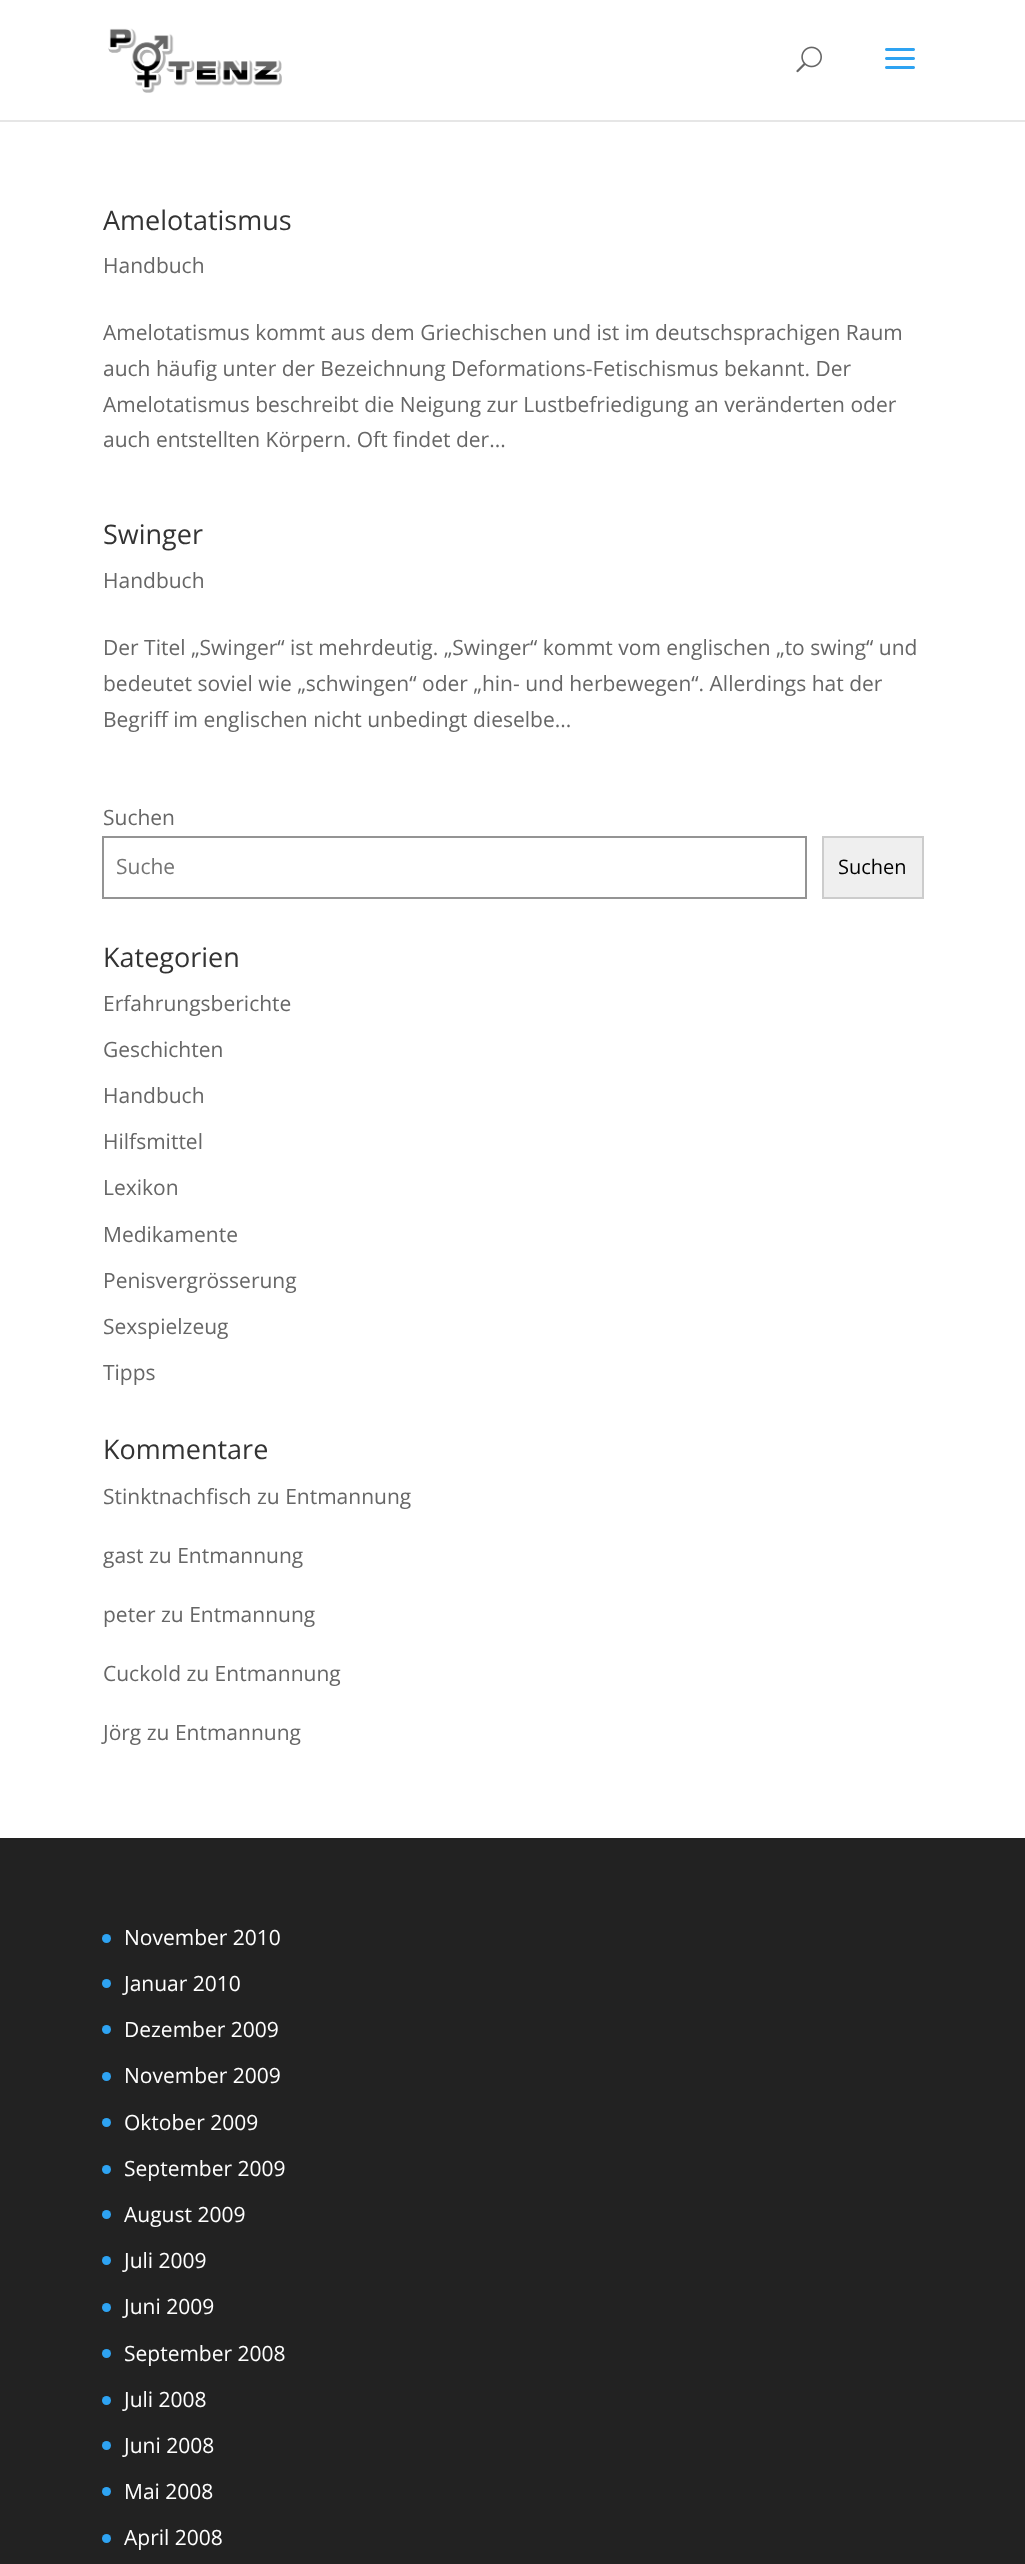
<!DOCTYPE html>
<meta charset="utf-8">
<style>body { margin: 0 } canvas { display: block }</style>
<canvas id="canvas" width="1025" height="2564"></canvas>
<img id="img1" src="images/1.png" hidden>
<img id="img2" src="images/2.png" hidden>
<img id="img3" src="images/3.png" hidden>
<script>
window.onload = function () {
    const canvas = document.getElementById('canvas');
    const context = canvas.getContext('2d');
    context.miterLimit = 4;
    context.fontKerning = 'normal';

    context.fillStyle = 'rgb(255, 255, 255)';
    context.fillRect(0, 0, 1025, 2564);
    context.fillStyle = 'rgb(230, 230, 230)';
    context.fillRect(0, 120, 1025, 2);
    context.drawImage(document.getElementById('img1'), 108, 28, 174, 65);
    context.drawImage(document.getElementById('img2'), 796, 46, 26, 27);
    context.drawImage(document.getElementById('img3'), 885, 48, 30, 21);
    context.strokeStyle = 'rgb(148, 148, 148)';
    context.lineWidth = 2;
    context.strokeRect(103, 837, 703, 61);
    context.fillStyle = 'rgb(239, 239, 239)';
    context.beginPath();
    context.rect(823, 837, 100, 61);
    context.fill();
    context.strokeStyle = 'rgb(204, 204, 204)';
    context.stroke();
    context.fillStyle = 'rgb(34, 34, 34)';
    context.fillRect(0, 1838, 1025, 726);
    context.fillStyle = 'rgb(46, 163, 242)';
    context.beginPath();
    context.arc(106.5, 1938.5, 4.5, 0, 2 * Math.PI);
    context.fill();
    context.beginPath();
    context.arc(106.5, 1983.5, 4.5, 0, 2 * Math.PI);
    context.fill();
    context.beginPath();
    context.arc(106.5, 2029.5, 4.5, 0, 2 * Math.PI);
    context.fill();
    context.beginPath();
    context.arc(106.5, 2076.5, 4.5, 0, 2 * Math.PI);
    context.fill();
    context.beginPath();
    context.arc(106.5, 2122.5, 4.5, 0, 2 * Math.PI);
    context.fill();
    context.beginPath();
    context.arc(106.5, 2169.5, 4.5, 0, 2 * Math.PI);
    context.fill();
    context.beginPath();
    context.arc(106.5, 2214.5, 4.5, 0, 2 * Math.PI);
    context.fill();
    context.beginPath();
    context.arc(106.5, 2260.5, 4.5, 0, 2 * Math.PI);
    context.fill();
    context.beginPath();
    context.arc(106.5, 2307.5, 4.5, 0, 2 * Math.PI);
    context.fill();
    context.beginPath();
    context.arc(106.5, 2353.5, 4.5, 0, 2 * Math.PI);
    context.fill();
    context.beginPath();
    context.arc(106.5, 2400.5, 4.5, 0, 2 * Math.PI);
    context.fill();
    context.beginPath();
    context.arc(106.5, 2445.5, 4.5, 0, 2 * Math.PI);
    context.fill();
    context.beginPath();
    context.arc(106.5, 2491.5, 4.5, 0, 2 * Math.PI);
    context.fill();
    context.beginPath();
    context.arc(106.5, 2538.5, 4.5, 0, 2 * Math.PI);
    context.fill();
    context.font = '27px Open Sans';
    context.fillStyle = 'rgb(51, 51, 51)';
    context.fillText('Amelotatismus', 103, 230);
    context.font = '21px Open Sans';
    context.fillStyle = 'rgb(102, 102, 102)';
    context.fillText('Handbuch', 103, 273);
    context.fillText('Amelotatismus kommt aus dem Griechischen und ist im deutschsprachigen Raum', 103, 340);
    context.fillText('auch häufig unter der Bezeichnung Deformations-Fetischismus bekannt. Der', 103, 376);
    context.fillText('Amelotatismus beschreibt die Neigung zur Lustbefriedigung an veränderten oder', 103, 412);
    context.fillText('auch entstellten Körpern. Oft findet der...', 103, 447);
    context.font = '27px Open Sans';
    context.fillStyle = 'rgb(51, 51, 51)';
    context.fillText('Swinger', 103, 544);
    context.font = '21px Open Sans';
    context.fillStyle = 'rgb(102, 102, 102)';
    context.fillText('Handbuch', 103, 588);
    context.fillText('Der Titel „Swinger“ ist mehrdeutig. „Swinger“ kommt vom englischen „to swing“ und', 103, 655);
    context.fillText('bedeutet soviel wie „schwingen“ oder „hin- und herbewegen“. Allerdings hat der', 103, 691);
    context.fillText('Begriff im englischen nicht unbedingt dieselbe...', 103, 727);
    context.fillText('Suchen', 103, 825);
    context.fillStyle = 'rgb(117, 117, 117)';
    context.fillText('Suche', 116, 874);
    context.font = '20px Open Sans';
    context.fillStyle = 'rgb(0, 0, 0)';
    context.fillText('Suchen', 838, 874);
    context.font = '27px Open Sans';
    context.fillStyle = 'rgb(51, 51, 51)';
    context.fillText('Kategorien', 103, 967);
    context.font = '21px Open Sans';
    context.fillStyle = 'rgb(102, 102, 102)';
    context.fillText('Erfahrungsberichte', 103, 1011);
    context.fillText('Geschichten', 103, 1057);
    context.fillText('Handbuch', 103, 1103);
    context.fillText('Hilfsmittel', 103, 1149);
    context.fillText('Lexikon', 103, 1195);
    context.fillText('Medikamente', 103, 1242);
    context.fillText('Penisvergrösserung', 103, 1288);
    context.fillText('Sexspielzeug', 103, 1334);
    context.fillText('Tipps', 103, 1380);
    context.font = '27px Open Sans';
    context.fillStyle = 'rgb(51, 51, 51)';
    context.fillText('Kommentare', 103, 1459);
    context.font = '21px Open Sans';
    context.fillStyle = 'rgb(102, 102, 102)';
    context.fillText('Stinktnachfisch zu Entmannung', 103, 1504);
    context.fillText('gast zu Entmannung', 103, 1563);
    context.fillText('peter zu Entmannung', 103, 1622);
    context.fillText('Cuckold zu Entmannung', 103, 1681);
    context.fillText('Jörg zu Entmannung', 103, 1740);
    context.fillStyle = 'rgb(255, 255, 255)';
    context.fillText('November 2010', 124, 1945);
    context.fillText('Januar 2010', 124, 1991);
    context.fillText('Dezember 2009', 124, 2037);
    context.fillText('November 2009', 124, 2083);
    context.fillText('Oktober 2009', 124, 2130);
    context.fillText('September 2009', 124, 2176);
    context.fillText('August 2009', 124, 2222);
    context.fillText('Juli 2009', 124, 2268);
    context.fillText('Juni 2009', 124, 2314);
    context.fillText('September 2008', 124, 2361);
    context.fillText('Juli 2008', 124, 2407);
    context.fillText('Juni 2008', 124, 2453);
    context.fillText('Mai 2008', 124, 2499);
    context.fillText('April 2008', 124, 2545);
};
</script>
